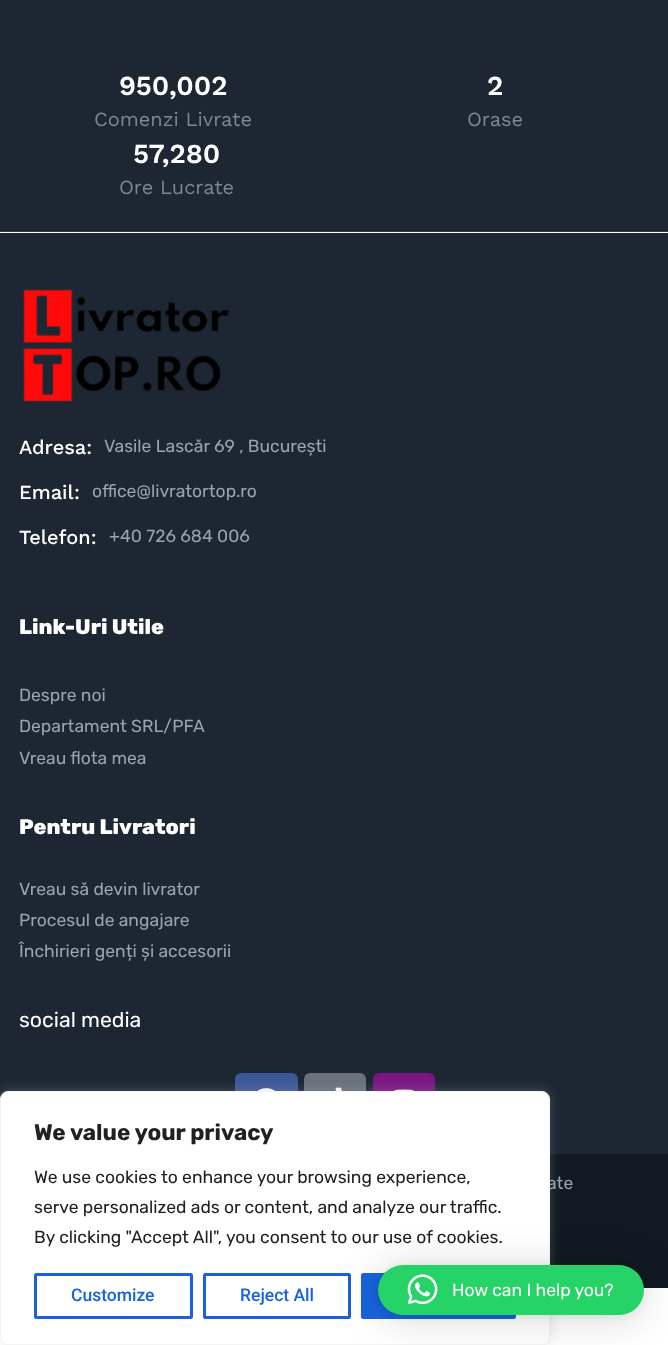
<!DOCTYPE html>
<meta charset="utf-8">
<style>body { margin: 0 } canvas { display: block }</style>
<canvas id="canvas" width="668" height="1345"></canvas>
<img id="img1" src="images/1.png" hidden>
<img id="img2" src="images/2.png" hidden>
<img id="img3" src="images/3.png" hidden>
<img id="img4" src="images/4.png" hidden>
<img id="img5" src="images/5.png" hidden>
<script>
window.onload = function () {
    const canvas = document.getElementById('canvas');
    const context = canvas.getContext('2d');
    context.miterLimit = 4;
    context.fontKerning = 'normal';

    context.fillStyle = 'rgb(255, 255, 255)';
    context.fillRect(0, 0, 668, 1345);
    context.fillStyle = 'rgb(28, 39, 51)';
    context.fillRect(0, 0, 668, 231);
    context.fillRect(0, 233, 668, 921);
    context.fillStyle = 'rgb(50, 60, 71)';
    context.fillRect(0, 231, 668, 1);
    context.drawImage(document.getElementById('img1'), 23, 289, 207, 113);
    context.fillStyle = 'rgb(59, 89, 152)';
    context.beginPath();
    context.roundRect(235, 1073, 63, 62, 6);
    context.fill();
    context.drawImage(document.getElementById('img2'), 257, 1088, 18, 3);
    context.fillStyle = 'rgb(105, 114, 125)';
    context.beginPath();
    context.roundRect(304, 1073, 62, 62, 6);
    context.fill();
    context.drawImage(document.getElementById('img3'), 335, 1087, 7, 4);
    context.fillStyle = 'rgb(124, 22, 130)';
    context.beginPath();
    context.roundRect(373, 1073, 62, 62, 6);
    context.fill();
    context.drawImage(document.getElementById('img4'), 393, 1089, 21, 2);
    context.fillStyle = 'rgb(17, 25, 34)';
    context.fillRect(550, 1154, 118, 134);
    context.fillStyle = 'rgba(172, 171, 171, 0.3)';
    context.filter = 'blur(6px)';
    context.beginPath();
    context.roundRect(0, 1090, 550, 254, 8);
    context.fill();
    context.filter = 'none';
    context.font = '600 27.5px Work Sans';
    context.fillStyle = 'rgb(255, 255, 255)';
    context.fillText('950,002', 119, 95);
    context.font = '20px Work Sans';
    context.fillStyle = 'rgb(126, 136, 144)';
    context.fillText('Comenzi Livrate', 94, 126);
    context.font = '600 27.5px Work Sans';
    context.fillStyle = 'rgb(255, 255, 255)';
    context.fillText('2', 487, 95);
    context.font = '20px Work Sans';
    context.fillStyle = 'rgb(126, 136, 144)';
    context.fillText('Orase', 467, 126);
    context.font = '600 27.5px Work Sans';
    context.fillStyle = 'rgb(255, 255, 255)';
    context.fillText('57,280', 133, 163);
    context.font = '20px Work Sans';
    context.fillStyle = 'rgb(126, 136, 144)';
    context.fillText('Ore Lucrate', 119, 194);
    context.font = '500 20px Work Sans';
    context.fillStyle = 'rgb(255, 255, 255)';
    context.fillText('Adresa:', 19, 454);
    context.font = '17.5px Rubik';
    context.fillStyle = 'rgb(150, 164, 179)';
    context.fillText('Vasile Lascăr 69 , București', 104, 452);
    context.font = '500 20px Work Sans';
    context.fillStyle = 'rgb(255, 255, 255)';
    context.fillText('Email:', 19, 499);
    context.font = '17.5px Rubik';
    context.fillStyle = 'rgb(150, 164, 179)';
    context.fillText('office@livratortop.ro', 92, 497);
    context.font = '500 20px Work Sans';
    context.fillStyle = 'rgb(255, 255, 255)';
    context.fillText('Telefon:', 19, 544);
    context.font = '17.5px Rubik';
    context.fillStyle = 'rgb(150, 164, 179)';
    context.fillText('+40 726 684 006', 109, 542);
    context.font = '800 21.25px Rubik';
    context.fillStyle = 'rgb(255, 255, 255)';
    context.fillText('Link-Uri Utile', 19, 634);
    context.font = '17.5px Rubik';
    context.fillStyle = 'rgb(150, 164, 179)';
    context.fillText('Despre noi', 19, 701);
    context.fillText('Departament SRL/PFA', 19, 732);
    context.fillText('Vreau flota mea', 19, 764);
    context.font = '800 21.25px Rubik';
    context.fillStyle = 'rgb(255, 255, 255)';
    context.fillText('Pentru Livratori', 19, 834);
    context.font = '17.5px Rubik';
    context.fillStyle = 'rgb(150, 164, 179)';
    context.fillText('Vreau să devin livrator', 19, 895);
    context.fillText('Procesul de angajare', 19, 926);
    context.fillText('Închirieri genți și accesorii', 19, 957);
    context.font = '21.25px Rubik';
    context.fillStyle = 'rgb(255, 255, 255)';
    context.fillText('social media', 19, 1027);
    context.font = '17.5px Rubik';
    context.fillStyle = 'rgb(150, 164, 179)';
    context.fillText('ate', 547, 1189);
    context.fillStyle = 'rgb(255, 255, 255)';
    context.beginPath();
    context.roundRect(0.5, 1091.5, 549, 253, 7.5);
    context.fill();
    context.strokeStyle = 'rgb(244, 244, 244)';
    context.stroke();
    context.font = 'bold 22.5px Rubik';
    context.fillStyle = 'rgb(33, 33, 33)';
    context.fillText('We value your privacy', 34, 1140);
    context.font = '17.5px Rubik';
    context.fillText('We use cookies to enhance your browsing experience,', 34, 1183);
    context.fillText('serve personalized ads or content, and analyze our traffic.', 34, 1213);
    context.fillText('By clicking "Accept All", you consent to our use of cookies.', 34, 1243);
    context.beginPath();
    context.roundRect(35.5, 1274.5, 156, 43, 1);
    context.strokeStyle = 'rgb(24, 99, 220)';
    context.lineWidth = 3;
    context.stroke();
    context.font = '500 17.5px Roboto';
    context.fillStyle = 'rgb(24, 99, 220)';
    context.fillText('Customize', 71, 1301);
    context.beginPath();
    context.roundRect(204.5, 1274.5, 145, 43, 1);
    context.stroke();
    context.fillText('Reject All', 240, 1301);
    context.beginPath();
    context.roundRect(362.5, 1274.5, 152, 43, 1);
    context.fill();
    context.stroke();
    context.fillStyle = 'rgba(0, 0, 0, 0.16)';
    context.filter = 'blur(20px)';
    context.beginPath();
    context.roundRect(378, 1268, 266, 50, 25);
    context.fill();
    context.filter = 'none';
    context.fillStyle = 'rgba(0, 0, 0, 0.06)';
    context.filter = 'blur(4px)';
    context.beginPath();
    context.roundRect(378, 1266, 266, 50, 25);
    context.fill();
    context.filter = 'none';
    context.fillStyle = 'rgb(37, 211, 102)';
    context.beginPath();
    context.roundRect(378, 1265, 266, 50, 25);
    context.fill();
    context.drawImage(document.getElementById('img5'), 407, 1274, 31, 31);
    context.font = '17.5px Rubik';
    context.fillStyle = 'rgb(255, 255, 255)';
    context.fillText('How can I help you?', 452, 1296);
};
</script>
